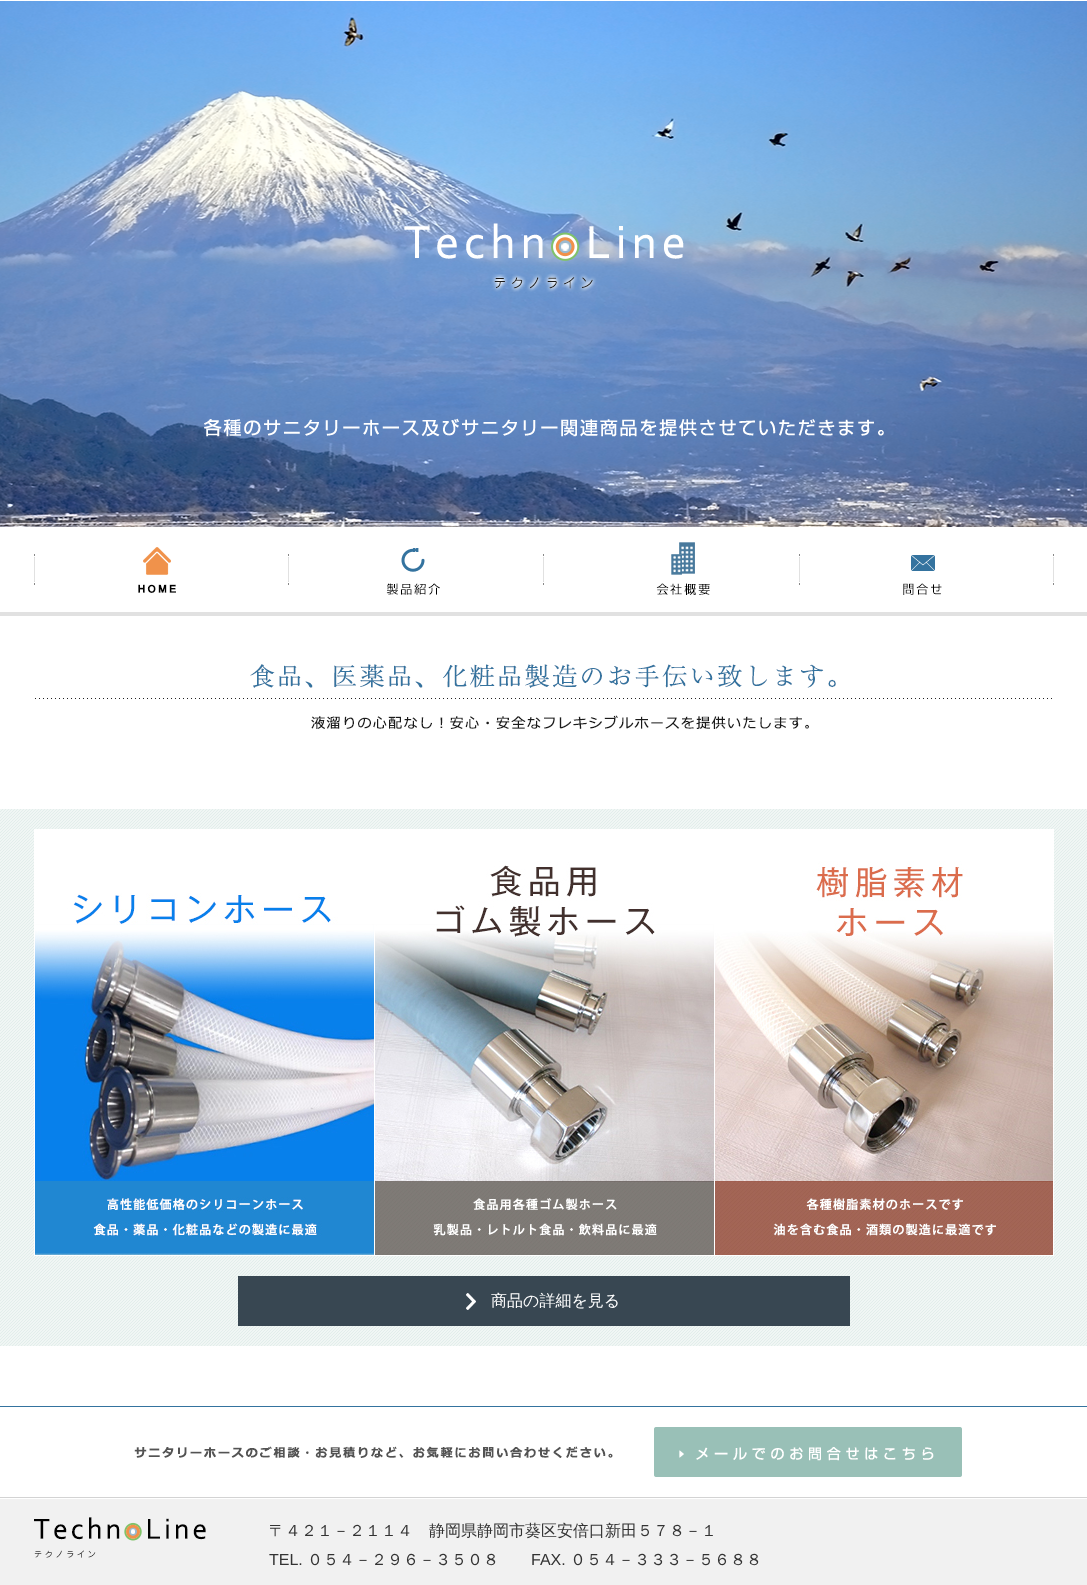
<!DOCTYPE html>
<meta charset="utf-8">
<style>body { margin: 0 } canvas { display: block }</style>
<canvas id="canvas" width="1087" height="1585"></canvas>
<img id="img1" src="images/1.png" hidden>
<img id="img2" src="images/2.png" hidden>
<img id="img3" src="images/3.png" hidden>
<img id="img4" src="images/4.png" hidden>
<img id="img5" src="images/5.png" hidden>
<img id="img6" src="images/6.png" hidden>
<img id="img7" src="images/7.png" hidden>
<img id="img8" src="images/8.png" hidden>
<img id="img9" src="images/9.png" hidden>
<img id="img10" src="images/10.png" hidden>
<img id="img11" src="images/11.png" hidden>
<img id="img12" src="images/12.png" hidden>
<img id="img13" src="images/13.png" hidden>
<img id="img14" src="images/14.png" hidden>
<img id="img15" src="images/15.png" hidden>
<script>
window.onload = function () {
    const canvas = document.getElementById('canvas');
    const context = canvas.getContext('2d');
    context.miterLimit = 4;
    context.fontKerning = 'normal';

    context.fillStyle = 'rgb(255, 255, 255)';
    context.fillRect(0, 0, 1087, 1585);
    context.drawImage(document.getElementById('img1'), 0, 1, 1087, 526);
    context.drawImage(document.getElementById('img2'), 204, 223, 680, 214);
    context.fillStyle = 'rgb(225, 225, 225)';
    context.fillRect(0, 612, 1087, 4);
    context.drawImage(document.getElementById('img3'), 34, 547, 255, 46);
    context.drawImage(document.getElementById('img4'), 386, 548, 158, 47);
    context.drawImage(document.getElementById('img5'), 656, 542, 54, 53);
    context.drawImage(document.getElementById('img6'), 799, 554, 255, 41);
    context.drawImage(document.getElementById('img7'), 35, 664, 1017, 65);
    context.drawImage(document.getElementById('img8'), 0, 809, 1087, 537);
    context.drawImage(document.getElementById('img9'), 34, 829, 340, 427);
    context.drawImage(document.getElementById('img10'), 374, 829, 340, 427);
    context.drawImage(document.getElementById('img11'), 714, 829, 340, 427);
    context.fillStyle = 'rgb(56, 71, 82)';
    context.fillRect(238, 1276, 612, 50);
    context.drawImage(document.getElementById('img12'), 466, 1293, 10, 17);
    context.fillStyle = 'rgb(52, 115, 159)';
    context.fillRect(0, 1406, 1087, 1);
    context.fillStyle = 'rgb(211, 211, 211)';
    context.fillRect(0, 1497, 1087, 1);
    context.drawImage(document.getElementById('img13'), 134, 1446, 479, 12);
    context.drawImage(document.getElementById('img14'), 654, 1427, 308, 50);
    context.fillStyle = 'rgb(241, 241, 241)';
    context.fillRect(0, 1499, 1087, 86);
    context.drawImage(document.getElementById('img15'), 34, 1517, 172, 41);
    context.font = '500 16px WenQuanYi Zen Hei';
    context.fillStyle = 'rgb(255, 255, 255)';
    context.fillText('商品の詳細を見る', 491, 1306);
    context.fillStyle = 'rgb(51, 51, 51)';
    context.fillText('〒４２１－２１１４　静岡県静岡市葵区安倍口新田５７８－１', 269, 1536);
    context.font = '16px Liberation Sans';
    context.fillText('TEL.', 269, 1565);
    context.font = '500 16px WenQuanYi Zen Hei';
    context.fillText('０５４－２９６－３５０８', 307, 1565);
    context.font = '16px Liberation Sans';
    context.fillText('FAX.', 531, 1565);
    context.font = '500 16px WenQuanYi Zen Hei';
    context.fillText('０５４－３３３－５６８８', 570, 1565);
};
</script>
